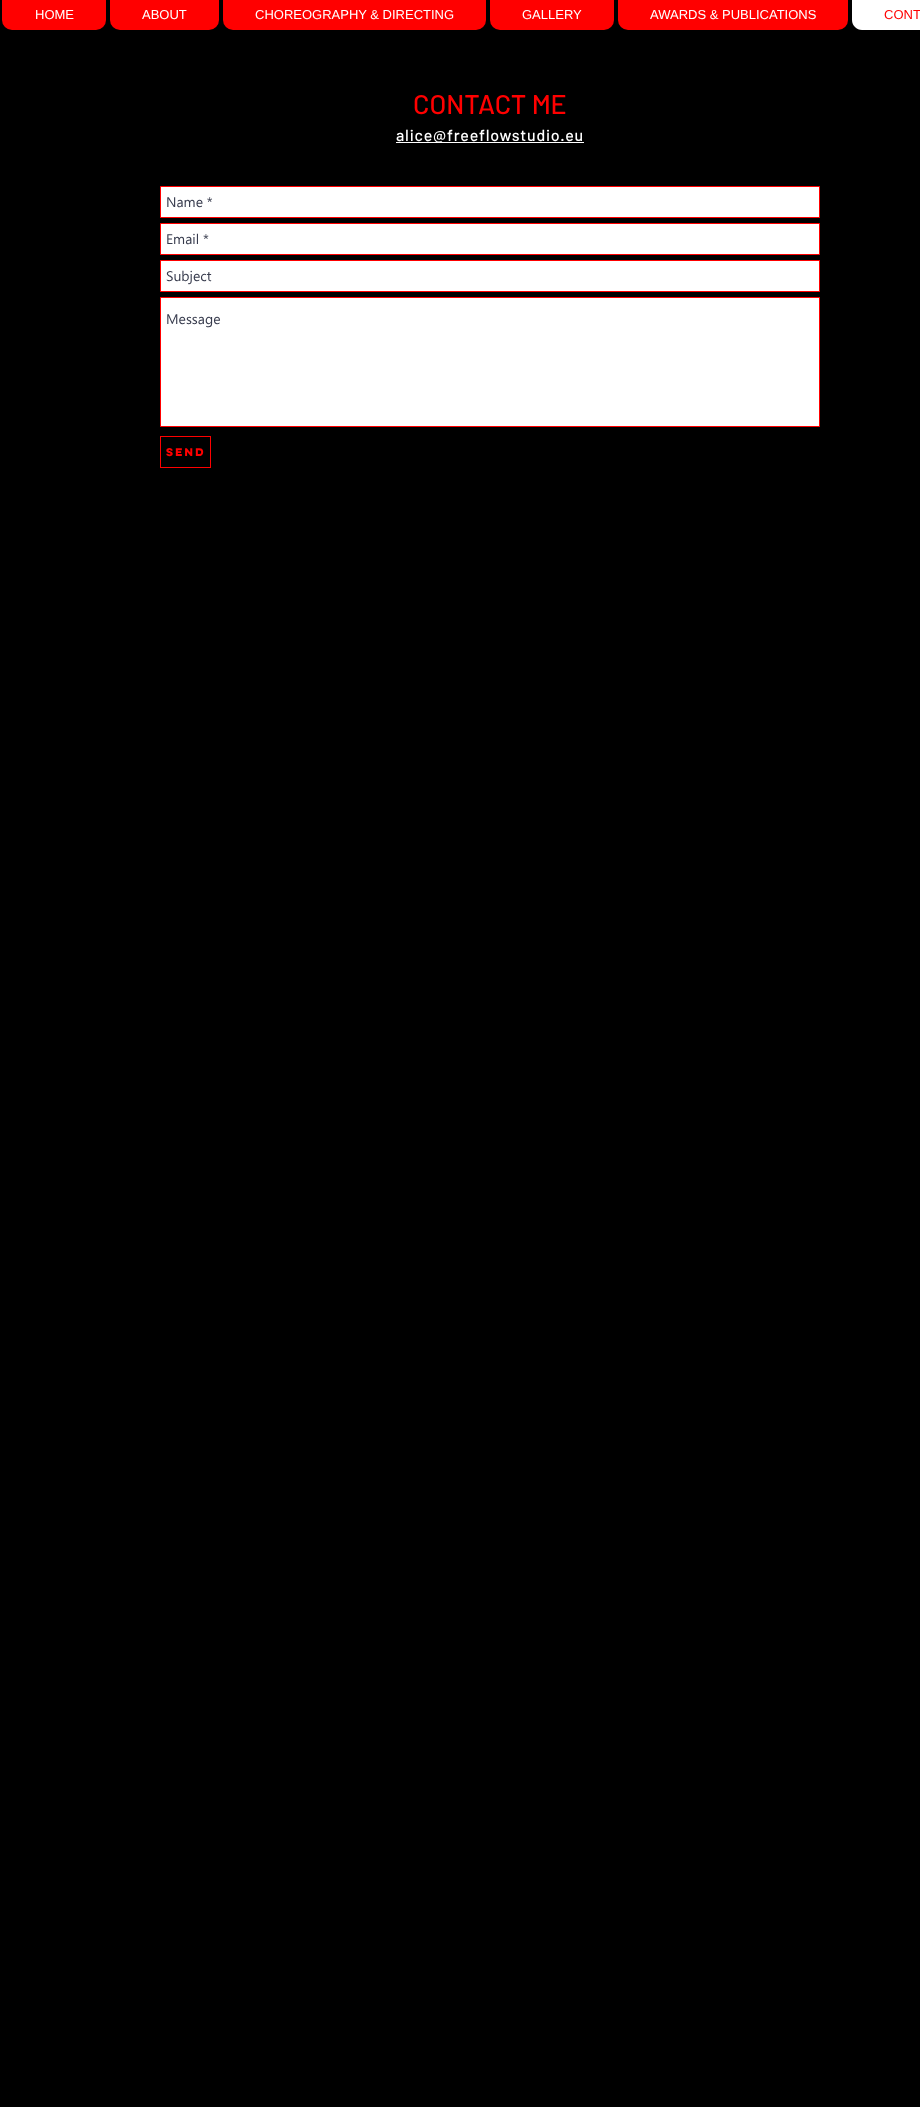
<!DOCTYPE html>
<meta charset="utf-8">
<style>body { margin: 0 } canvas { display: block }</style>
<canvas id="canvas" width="920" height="2107"></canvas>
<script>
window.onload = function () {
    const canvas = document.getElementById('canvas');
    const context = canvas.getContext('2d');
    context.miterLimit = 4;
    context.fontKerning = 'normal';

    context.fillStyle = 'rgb(0, 0, 0)';
    context.fillRect(0, 0, 920, 2107);
    context.fillStyle = 'rgb(255, 0, 0)';
    context.beginPath();
    context.roundRect(2, 0, 104, 30, [0, 0, 10, 10]);
    context.fill();
    context.beginPath();
    context.roundRect(110, 0, 109, 30, [0, 0, 10, 10]);
    context.fill();
    context.beginPath();
    context.roundRect(223, 0, 263, 30, [0, 0, 10, 10]);
    context.fill();
    context.beginPath();
    context.roundRect(490, 0, 124, 30, [0, 0, 10, 10]);
    context.fill();
    context.beginPath();
    context.roundRect(618, 0, 230, 30, [0, 0, 10, 10]);
    context.fill();
    context.fillStyle = 'rgb(255, 255, 255)';
    context.beginPath();
    context.moveTo(852, 0);
    context.lineTo(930, 0);
    context.lineTo(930, 20);
    context.bezierCurveTo(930, 25.5, 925.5, 30, 920, 30);
    context.lineTo(862, 30);
    context.bezierCurveTo(856.5, 30, 852, 25.5, 852, 20);
    context.closePath();
    context.fill();
    context.fillRect(396, 142, 188, 1);
    context.beginPath();
    context.rect(160.5, 186.5, 659, 31);
    context.fill();
    context.strokeStyle = 'rgb(255, 0, 0)';
    context.stroke();
    context.beginPath();
    context.rect(160.5, 223.5, 659, 31);
    context.fill();
    context.stroke();
    context.beginPath();
    context.rect(160.5, 260.5, 659, 31);
    context.fill();
    context.stroke();
    context.beginPath();
    context.rect(160.5, 297.5, 659, 129);
    context.fill();
    context.stroke();
    context.strokeRect(160.5, 436.5, 50, 31);
    context.font = '13px Liberation Sans';
    context.fillText('HOME', 35, 19);
    context.fillText('ABOUT', 142, 19);
    context.fillText('CHOREOGRAPHY & DIRECTING', 255, 19);
    context.fillText('GALLERY', 522, 19);
    context.fillText('AWARDS & PUBLICATIONS', 650, 19);
    context.fillStyle = 'rgb(255, 0, 0)';
    context.fillText('CONT', 884, 19);
    context.font = '500 27px Barlow';
    context.fillText('CONTACT ME', 413, 114);
    context.letterSpacing = '0.8px';
    context.font = '500 16px Barlow';
    context.fillStyle = 'rgb(255, 255, 255)';
    context.fillText('alice@freeflowstudio.eu', 396, 141);
    context.letterSpacing = '0px';
    context.font = '14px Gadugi';
    context.fillStyle = 'rgb(55, 59, 77)';
    context.fillText('Name *', 166, 207);
    context.fillText('Email *', 166, 244);
    context.fillText('Subject', 166, 281);
    context.fillText('Message', 166, 324);
    context.font = 'bold 10px "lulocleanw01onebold"';
    context.fillStyle = 'rgb(255, 0, 0)';
    context.fillText('Send', 166, 456);
};
</script>
